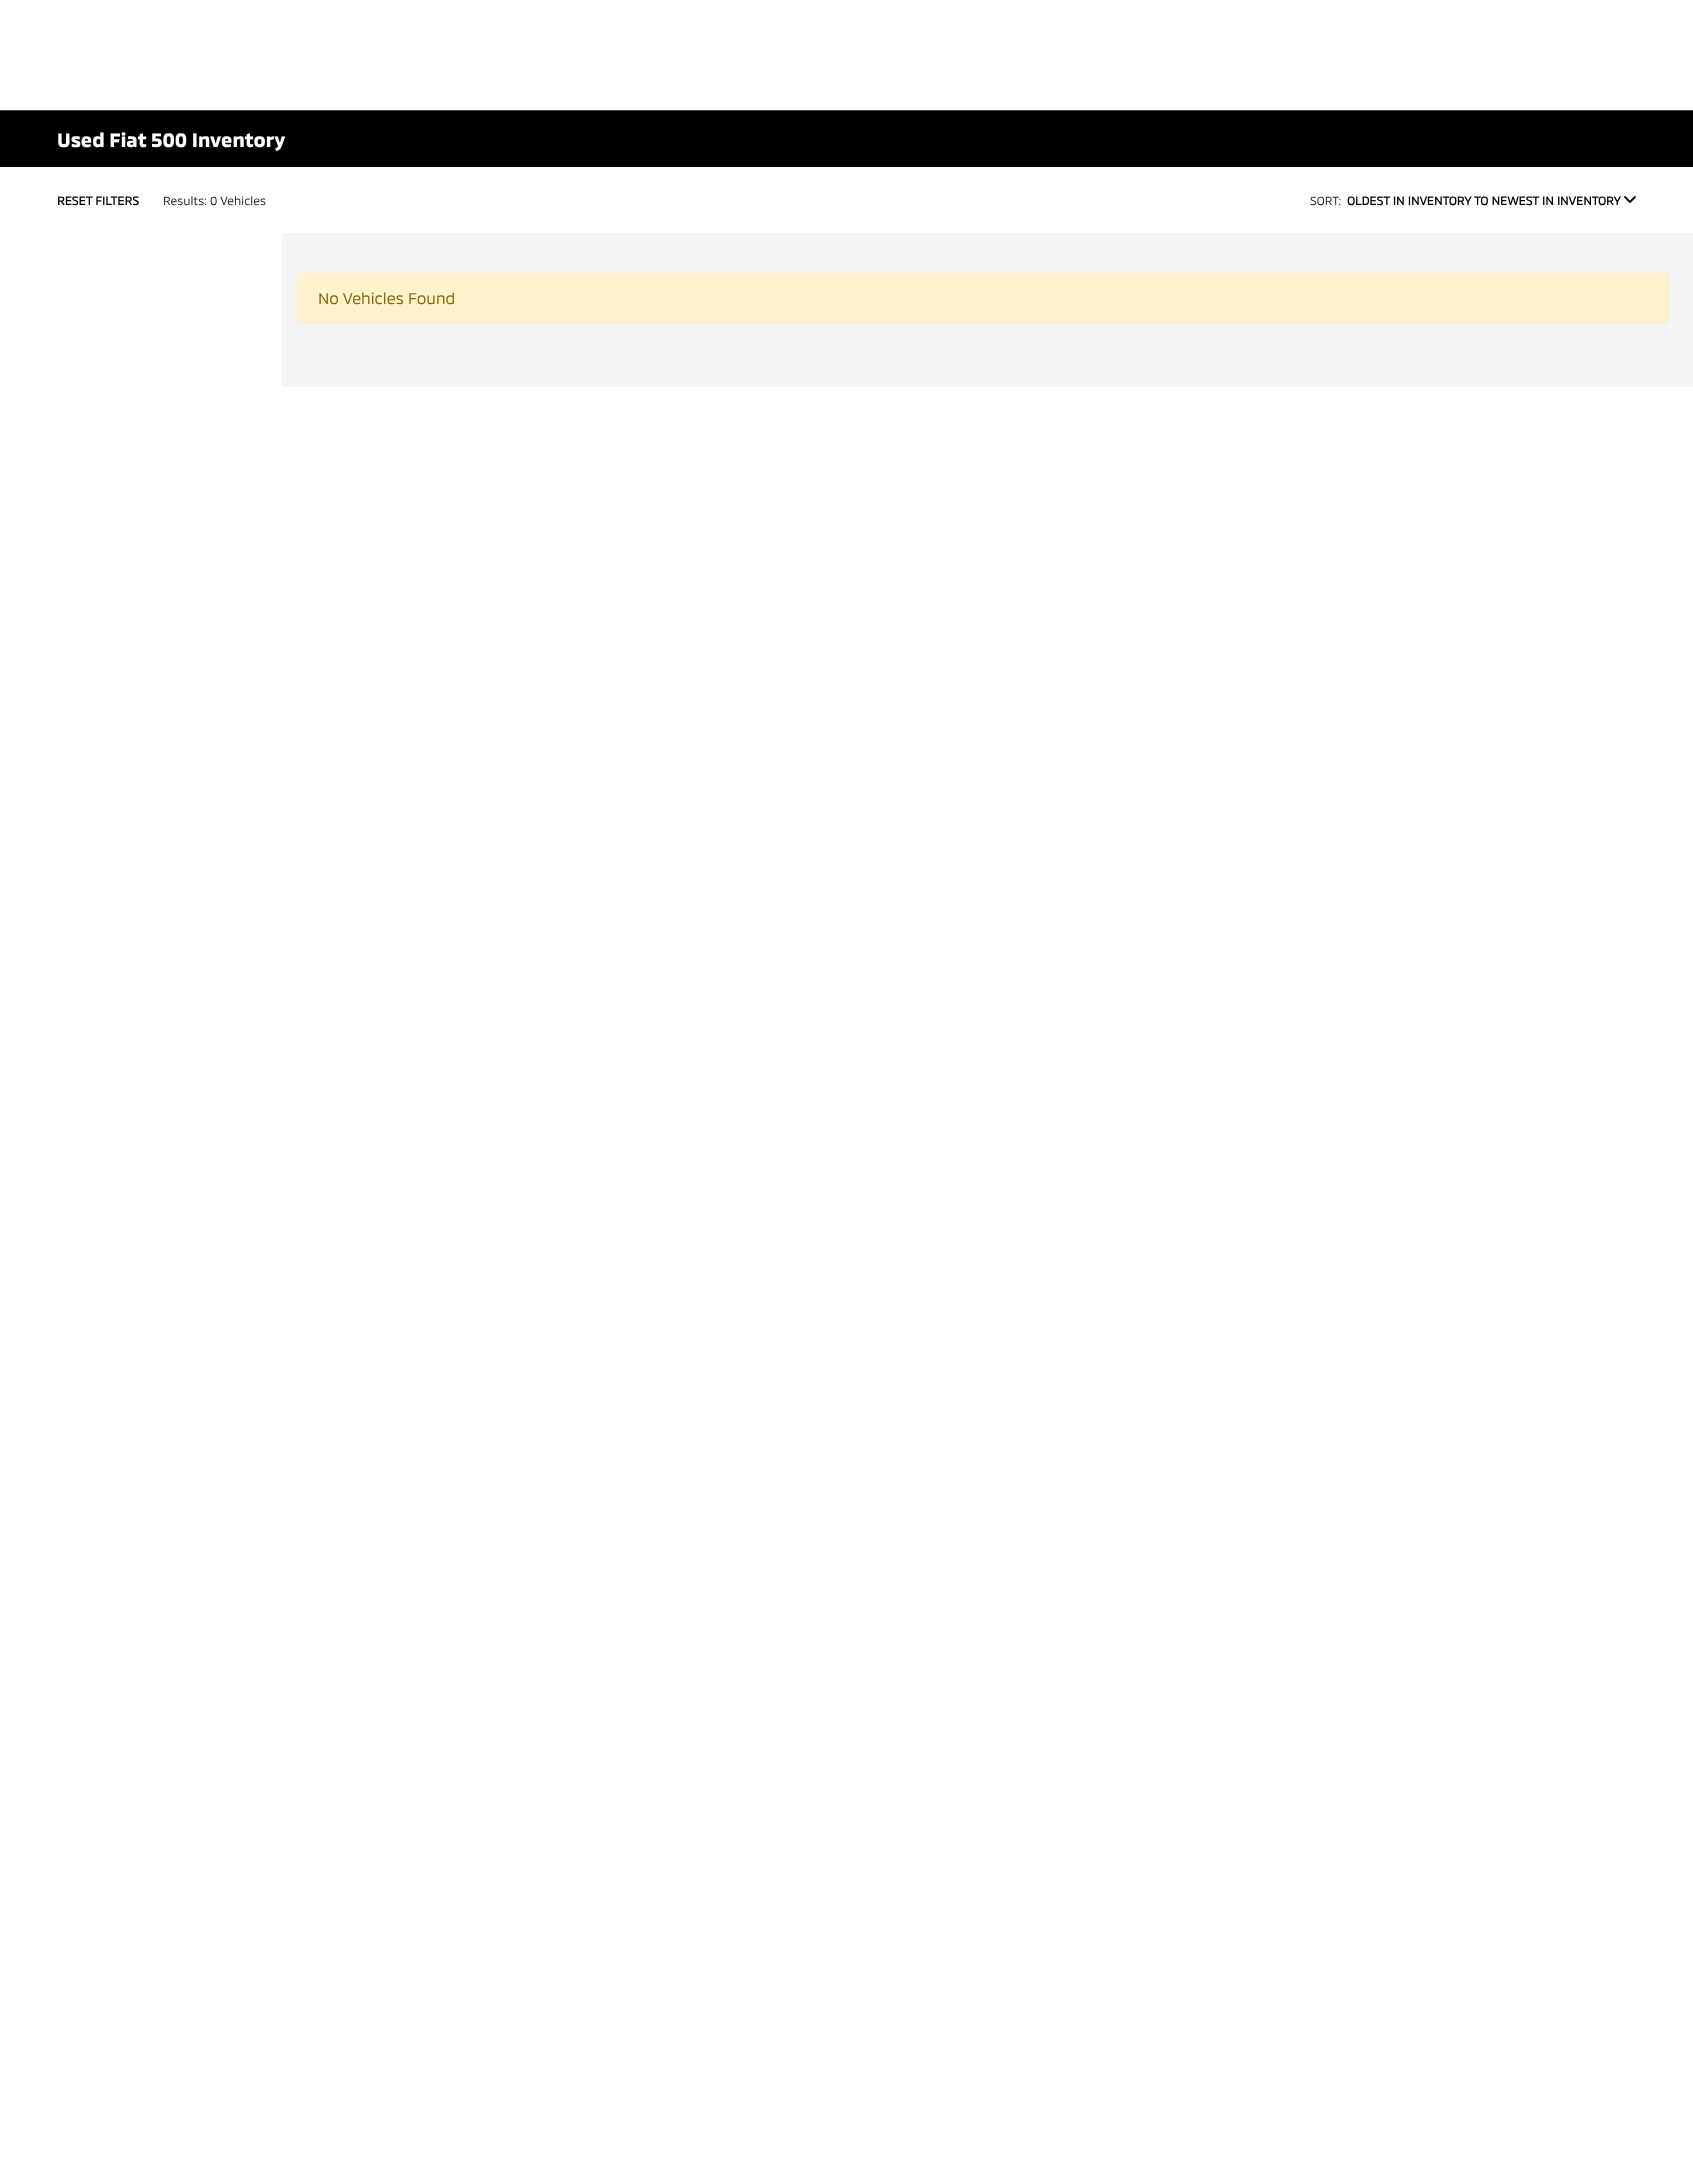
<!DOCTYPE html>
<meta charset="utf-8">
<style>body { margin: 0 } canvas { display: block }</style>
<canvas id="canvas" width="1693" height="2157"></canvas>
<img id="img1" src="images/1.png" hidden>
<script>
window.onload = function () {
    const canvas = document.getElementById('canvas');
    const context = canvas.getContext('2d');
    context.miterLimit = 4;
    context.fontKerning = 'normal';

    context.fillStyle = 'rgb(255, 255, 255)';
    context.fillRect(0, 0, 1693, 2157);
    context.fillStyle = 'rgb(245, 245, 245)';
    context.fillRect(282, 233, 1411, 154);
    context.fillStyle = 'rgb(0, 0, 0)';
    context.fillRect(0, 111, 1693, 56);
    context.fillStyle = 'rgb(72, 69, 69)';
    context.fillRect(0, 110, 1693, 1);
    context.drawImage(document.getElementById('img1'), 1624, 196, 12, 8);
    context.fillStyle = 'rgb(255, 243, 205)';
    context.beginPath();
    context.roundRect(297.5, 273.5, 1371, 49, 3.5);
    context.fill();
    context.strokeStyle = 'rgb(255, 238, 186)';
    context.stroke();
    context.font = 'bold 20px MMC';
    context.fillStyle = 'rgb(255, 255, 255)';
    context.fillText('Used Fiat 500 Inventory', 57, 147);
    context.font = 'bold 12px "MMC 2"';
    context.fillStyle = 'rgb(0, 0, 0)';
    context.fillText('RESET FILTERS', 57, 205);
    context.font = '12px MMC';
    context.fillStyle = 'rgb(33, 37, 41)';
    context.fillText('Results: 0 Vehicles', 163, 205);
    context.fillText('SORT:', 1310, 205);
    context.font = 'bold 12px "MMC 2"';
    context.fillStyle = 'rgb(0, 0, 0)';
    context.fillText('OLDEST IN INVENTORY TO NEWEST IN INVENTORY', 1347, 205);
    context.font = '16px MMC';
    context.fillStyle = 'rgb(133, 100, 4)';
    context.fillText('No Vehicles Found', 318, 304);
};
</script>
